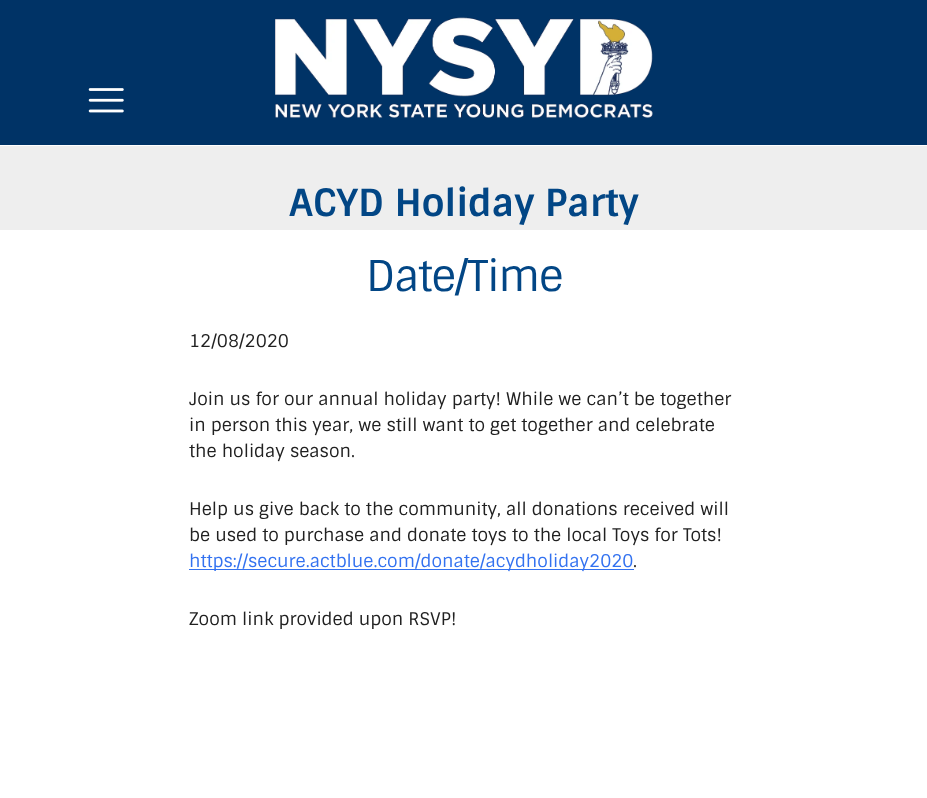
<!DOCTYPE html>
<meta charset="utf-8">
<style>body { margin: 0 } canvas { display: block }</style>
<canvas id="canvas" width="927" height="798"></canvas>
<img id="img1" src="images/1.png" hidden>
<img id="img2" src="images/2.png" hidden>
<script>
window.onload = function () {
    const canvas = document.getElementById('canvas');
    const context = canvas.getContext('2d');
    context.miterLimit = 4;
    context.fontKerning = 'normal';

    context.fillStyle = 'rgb(255, 255, 255)';
    context.fillRect(0, 0, 927, 798);
    context.fillStyle = 'rgb(0, 51, 102)';
    context.fillRect(0, 0, 927, 145);
    context.drawImage(document.getElementById('img1'), 88, 88, 36, 25);
    context.drawImage(document.getElementById('img2'), 275, 17, 378, 101);
    context.fillStyle = 'rgb(238, 238, 238)';
    context.fillRect(0, 146, 927, 84);
    context.fillStyle = 'rgb(51, 114, 240)';
    context.fillRect(189, 569, 445, 1);
    context.font = 'bold 37.5px Sintony';
    context.fillStyle = 'rgb(2, 70, 133)';
    context.fillText('ACYD Holiday Party', 289, 216);
    context.letterSpacing = '-1.25px';
    context.font = '42.5px Sintony';
    context.fillText('Date/Time', 366, 291);
    context.letterSpacing = '0px';
    context.font = '17.5px Sintony';
    context.fillStyle = 'rgb(33, 33, 33)';
    context.fillText('12/08/2020', 189, 347);
    context.fillText('Join us for our annual holiday party! While we can’t be together', 189, 405);
    context.fillText('in person this year, we still want to get together and celebrate', 189, 431);
    context.fillText('the holiday season.', 189, 457);
    context.fillText('Help us give back to the community, all donations received will', 189, 515);
    context.fillText('be used to purchase and donate toys to the local Toys for Tots!', 189, 541);
    context.fillStyle = 'rgb(51, 114, 240)';
    context.fillText('https://secure.actblue.com/donate/acydholiday2020', 189, 567);
    context.fillStyle = 'rgb(33, 33, 33)';
    context.fillText('.', 633, 567);
    context.fillText('Zoom link provided upon RSVP!', 189, 625);
};
</script>
